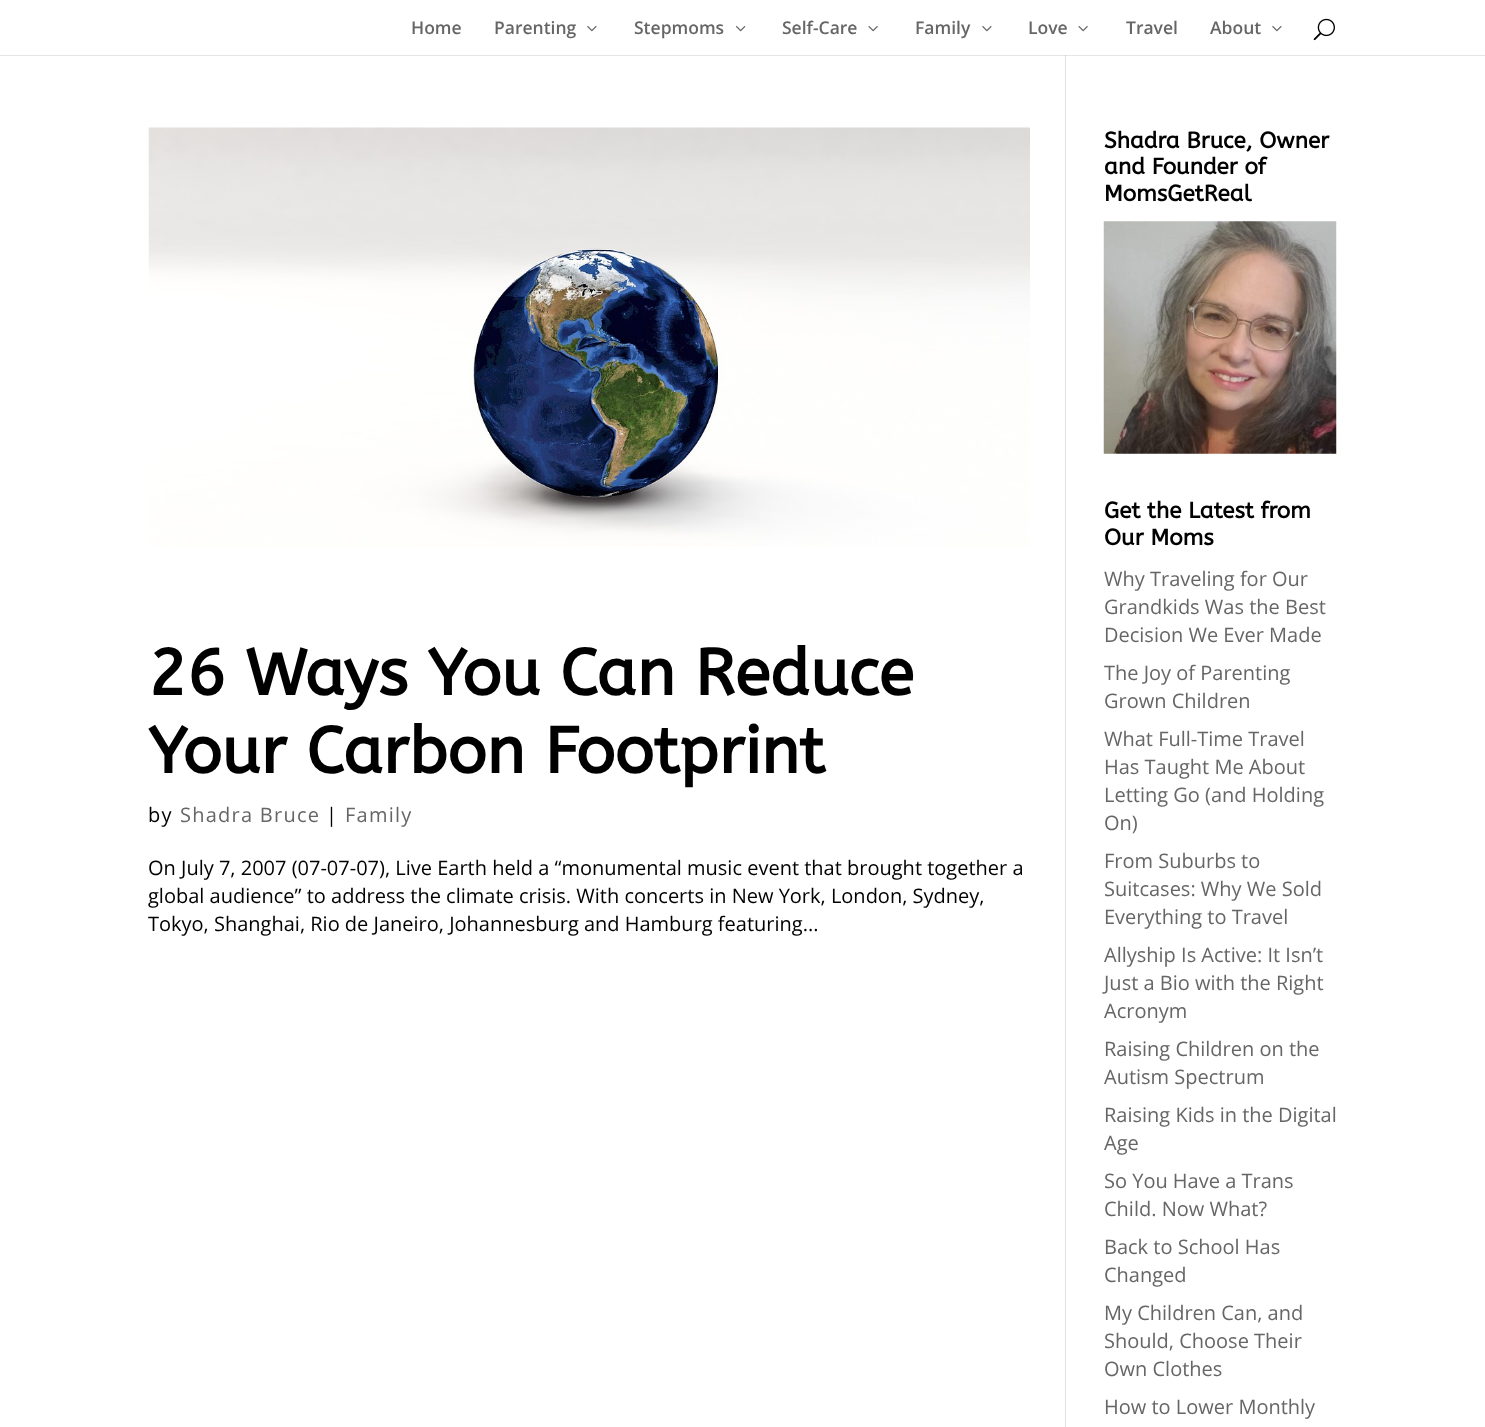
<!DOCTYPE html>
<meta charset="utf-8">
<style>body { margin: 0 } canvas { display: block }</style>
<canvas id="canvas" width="1485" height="1427"></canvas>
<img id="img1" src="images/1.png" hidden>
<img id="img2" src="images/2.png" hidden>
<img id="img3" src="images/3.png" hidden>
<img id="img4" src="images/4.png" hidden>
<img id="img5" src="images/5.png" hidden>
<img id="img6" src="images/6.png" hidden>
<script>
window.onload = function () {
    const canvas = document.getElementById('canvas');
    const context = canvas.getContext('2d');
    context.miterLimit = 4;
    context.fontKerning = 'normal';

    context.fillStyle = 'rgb(255, 255, 255)';
    context.fillRect(0, 0, 1485, 1427);
    context.fillStyle = 'rgb(230, 230, 230)';
    context.fillRect(0, 55, 1485, 1);
    context.drawImage(document.getElementById('img1'), 587, 26, 10, 6);
    context.drawImage(document.getElementById('img2'), 736, 26, 10, 6);
    context.drawImage(document.getElementById('img3'), 868, 26, 10, 6);
    context.drawImage(document.getElementById('img1'), 982, 26, 10, 6);
    context.drawImage(document.getElementById('img3'), 1078, 26, 10, 6);
    context.drawImage(document.getElementById('img1'), 1272, 26, 10, 6);
    context.drawImage(document.getElementById('img4'), 1313, 18, 22, 23);
    context.fillStyle = 'rgb(226, 226, 226)';
    context.fillRect(1065, 55, 1, 1372);
    context.fillStyle = 'rgb(203, 203, 203)';
    context.fillRect(1065, 55, 1, 1);
    context.drawImage(document.getElementById('img5'), 148, 127, 882, 420);
    context.drawImage(document.getElementById('img6'), 1103, 221, 234, 233);
    context.font = '600 17.5px Open Sans';
    context.fillStyle = 'rgb(102, 102, 102)';
    context.fillText('Home', 411, 34);
    context.fillText('Parenting', 494, 34);
    context.fillText('Stepmoms', 634, 34);
    context.fillText('Self-Care', 782, 34);
    context.fillText('Family', 915, 34);
    context.fillText('Love', 1028, 34);
    context.fillText('Travel', 1126, 34);
    context.fillText('About', 1210, 34);
    context.font = 'bold 65px ABeeZee';
    context.fillStyle = 'rgb(0, 0, 0)';
    context.fillText('26 Ways You Can Reduce', 148, 695);
    context.fillText('Your Carbon Footprint', 148, 773);
    context.letterSpacing = '1.25px';
    context.font = '20px Open Sans';
    context.fillText('by', 148, 822);
    context.fillStyle = 'rgb(102, 102, 102)';
    context.fillText('Shadra Bruce', 180, 822);
    context.fillStyle = 'rgb(0, 0, 0)';
    context.fillText('|', 326, 822);
    context.fillStyle = 'rgb(102, 102, 102)';
    context.fillText('Family', 345, 822);
    context.letterSpacing = '0px';
    context.fillStyle = 'rgb(0, 0, 0)';
    context.fillText('On July 7, 2007 (07-07-07), Live Earth held a “monumental music event that brought together a', 148, 875);
    context.fillText('global audience” to address the climate crisis. With concerts in New York, London, Sydney,', 148, 903);
    context.fillText('Tokyo, Shanghai, Rio de Janeiro, Johannesburg and Hamburg featuring...', 148, 931);
    context.font = 'bold 22.5px ABeeZee';
    context.fillText('Shadra Bruce, Owner', 1104, 148);
    context.fillText('and Founder of', 1104, 174);
    context.fillText('MomsGetReal', 1104, 201);
    context.fillText('Get the Latest from', 1104, 518);
    context.fillText('Our Moms', 1104, 545);
    context.font = '20px Open Sans';
    context.fillStyle = 'rgb(102, 102, 102)';
    context.fillText('Why Traveling for Our', 1104, 586);
    context.fillText('Grandkids Was the Best', 1104, 614);
    context.fillText('Decision We Ever Made', 1104, 642);
    context.fillText('The Joy of Parenting', 1104, 680);
    context.fillText('Grown Children', 1104, 708);
    context.fillText('What Full-Time Travel', 1104, 746);
    context.fillText('Has Taught Me About', 1104, 774);
    context.fillText('Letting Go (and Holding', 1104, 802);
    context.fillText('On)', 1104, 830);
    context.fillText('From Suburbs to', 1104, 868);
    context.fillText('Suitcases: Why We Sold', 1104, 896);
    context.fillText('Everything to Travel', 1104, 924);
    context.fillText('Allyship Is Active: It Isn’t', 1104, 962);
    context.fillText('Just a Bio with the Right', 1104, 990);
    context.fillText('Acronym', 1104, 1018);
    context.fillText('Raising Children on the', 1104, 1056);
    context.fillText('Autism Spectrum', 1104, 1084);
    context.fillText('Raising Kids in the Digital', 1104, 1122);
    context.fillText('Age', 1104, 1150);
    context.fillText('So You Have a Trans', 1104, 1188);
    context.fillText('Child. Now What?', 1104, 1216);
    context.fillText('Back to School Has', 1104, 1254);
    context.fillText('Changed', 1104, 1282);
    context.fillText('My Children Can, and', 1104, 1320);
    context.fillText('Should, Choose Their', 1104, 1348);
    context.fillText('Own Clothes', 1104, 1376);
    context.fillText('How to Lower Monthly', 1104, 1414);
};
</script>
